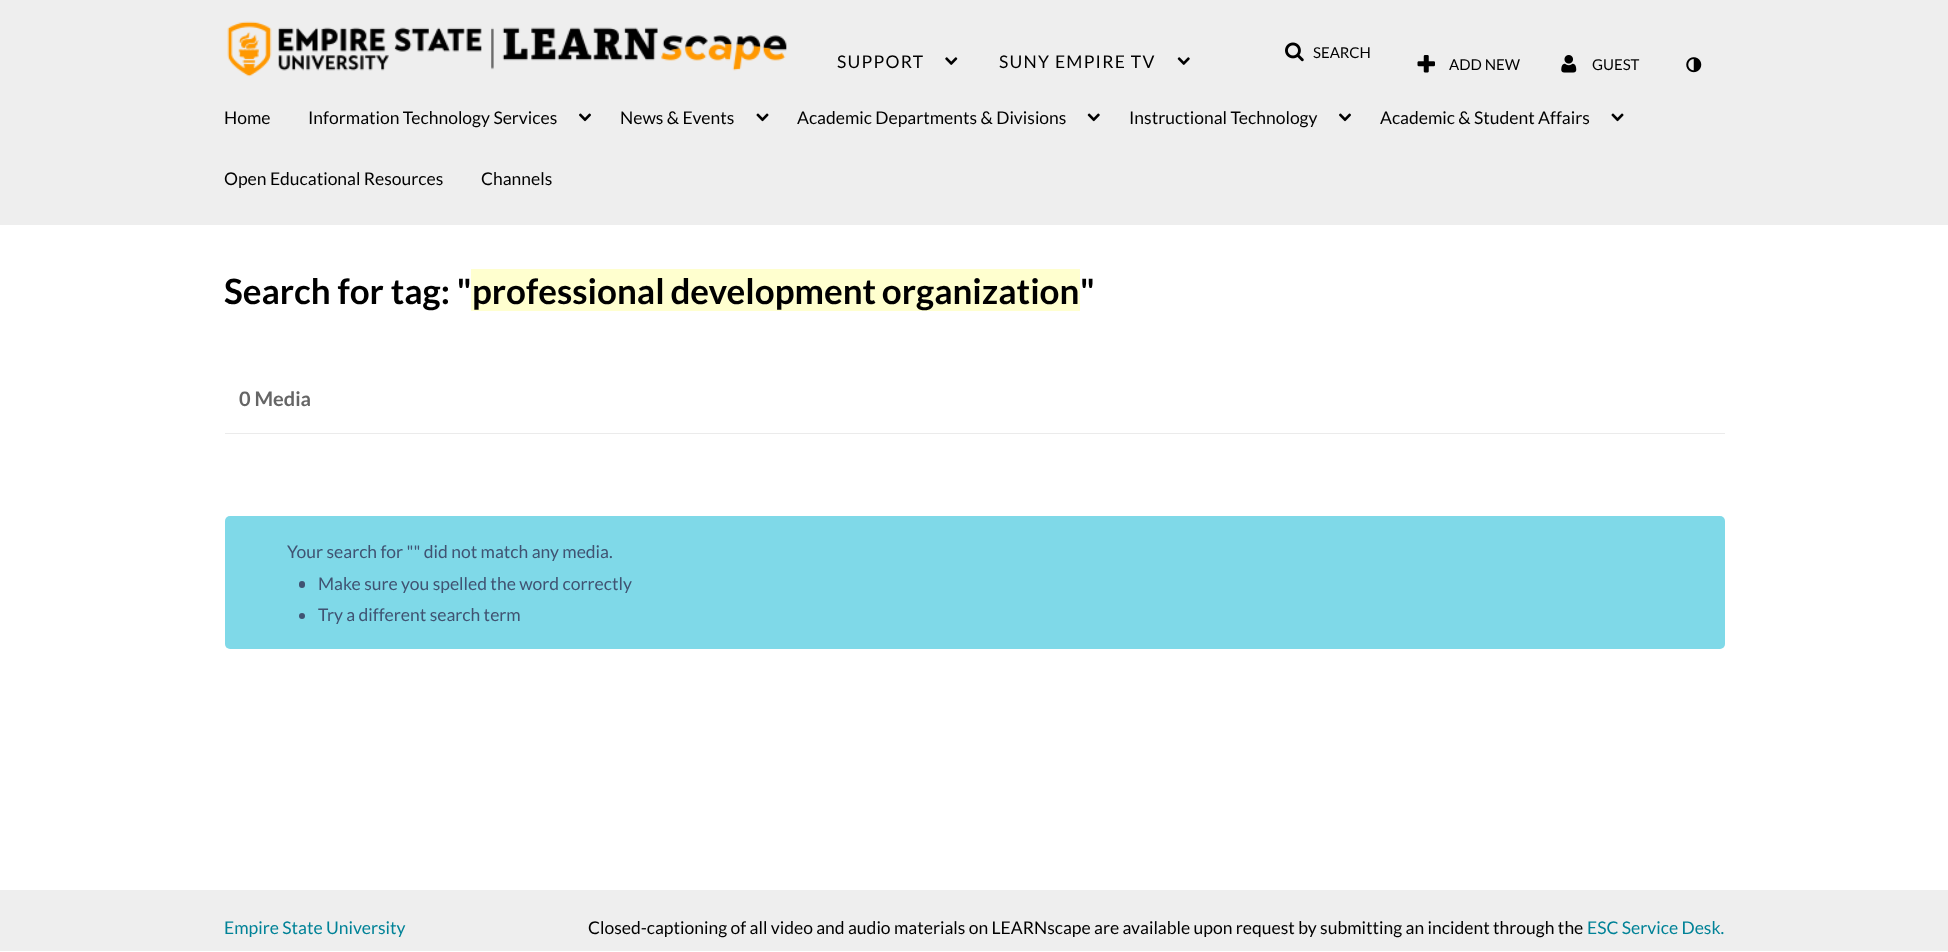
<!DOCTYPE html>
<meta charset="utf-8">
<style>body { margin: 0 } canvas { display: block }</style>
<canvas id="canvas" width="1948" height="952"></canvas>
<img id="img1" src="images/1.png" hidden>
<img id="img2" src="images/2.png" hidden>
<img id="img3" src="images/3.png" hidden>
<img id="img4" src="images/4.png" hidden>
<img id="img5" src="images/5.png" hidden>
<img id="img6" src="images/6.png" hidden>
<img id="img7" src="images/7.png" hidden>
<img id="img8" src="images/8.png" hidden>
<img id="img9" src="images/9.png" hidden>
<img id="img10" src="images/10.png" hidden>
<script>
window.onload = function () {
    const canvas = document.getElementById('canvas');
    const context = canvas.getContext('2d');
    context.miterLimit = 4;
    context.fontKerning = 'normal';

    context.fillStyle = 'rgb(255, 255, 255)';
    context.fillRect(0, 0, 1948, 952);
    context.fillStyle = 'rgb(238, 238, 238)';
    context.fillRect(0, 0, 1948, 225);
    context.drawImage(document.getElementById('img1'), 227, 21, 560, 56);
    context.drawImage(document.getElementById('img2'), 945, 57, 13, 8);
    context.drawImage(document.getElementById('img3'), 1177, 57, 13, 8);
    context.drawImage(document.getElementById('img4'), 1285, 42, 19, 20);
    context.drawImage(document.getElementById('img5'), 1417, 55, 18, 18);
    context.drawImage(document.getElementById('img6'), 1561, 55, 16, 18);
    context.drawImage(document.getElementById('img7'), 1686, 57, 16, 16);
    context.drawImage(document.getElementById('img8'), 579, 113, 12, 9);
    context.drawImage(document.getElementById('img9'), 756, 113, 13, 9);
    context.drawImage(document.getElementById('img10'), 1087, 113, 13, 9);
    context.drawImage(document.getElementById('img8'), 1339, 113, 12, 9);
    context.drawImage(document.getElementById('img9'), 1611, 113, 13, 9);
    context.fillStyle = 'rgb(255, 255, 207)';
    context.fillRect(471, 269, 609, 42);
    context.fillStyle = 'rgb(235, 235, 235)';
    context.fillRect(225, 433, 1500, 1);
    context.fillStyle = 'rgb(127, 217, 232)';
    context.beginPath();
    context.roundRect(225, 516, 1500, 133, 5);
    context.fill();
    context.fillStyle = 'rgb(64, 83, 114)';
    context.beginPath();
    context.roundRect(299, 581, 6, 7, 3);
    context.fill();
    context.beginPath();
    context.arc(302, 616, 3, 0, 2 * Math.PI);
    context.fill();
    context.fillStyle = 'rgb(238, 238, 238)';
    context.fillRect(0, 890, 1948, 61);
    context.letterSpacing = '1.25px';
    context.font = '17.5px Lato';
    context.fillStyle = 'rgb(0, 0, 0)';
    context.fillText('SUPPORT', 837, 68);
    context.fillText('SUNY EMPIRE TV', 999, 68);
    context.letterSpacing = '0px';
    context.font = '15px Lato';
    context.fillText('SEARCH', 1313, 58);
    context.fillText('ADD NEW', 1449, 70);
    context.fillText('GUEST', 1592, 70);
    context.font = '17.5px Lato';
    context.fillText('Home', 224, 124);
    context.fillText('Information Technology Services', 308, 124);
    context.fillText('News & Events', 620, 124);
    context.fillText('Academic Departments & Divisions', 797, 124);
    context.fillText('Instructional Technology', 1129, 124);
    context.fillText('Academic & Student Affairs', 1380, 124);
    context.fillText('Open Educational Resources', 224, 185);
    context.fillText('Channels', 481, 185);
    context.font = 'bold 35px Lato';
    context.fillText('Search for tag: "', 224, 304);
    context.wordSpacing = '-1px';
    context.fillText('professional development organization', 472, 304);
    context.wordSpacing = '0px';
    context.fillText('"', 1080, 304);
    context.font = 'bold 20px Lato';
    context.fillStyle = 'rgb(102, 102, 102)';
    context.fillText('0 Media', 239, 406);
    context.font = '17.5px Lato';
    context.fillStyle = 'rgb(64, 83, 114)';
    context.fillText('Your search for "" did not match any media.', 287, 558);
    context.fillText('Make sure you spelled the word correctly', 318, 590);
    context.fillText('Try a different search term', 318, 621);
    context.fillStyle = 'rgb(0, 130, 151)';
    context.fillText('Empire State University', 224, 934);
    context.fillStyle = 'rgb(0, 0, 0)';
    context.fillText('Closed-captioning of all video and audio materials on LEARNscape are available upon request by submitting an incident through the', 588, 934);
    context.fillStyle = 'rgb(0, 130, 151)';
    context.fillText('ESC Service Desk.', 1587, 934);
};
</script>
